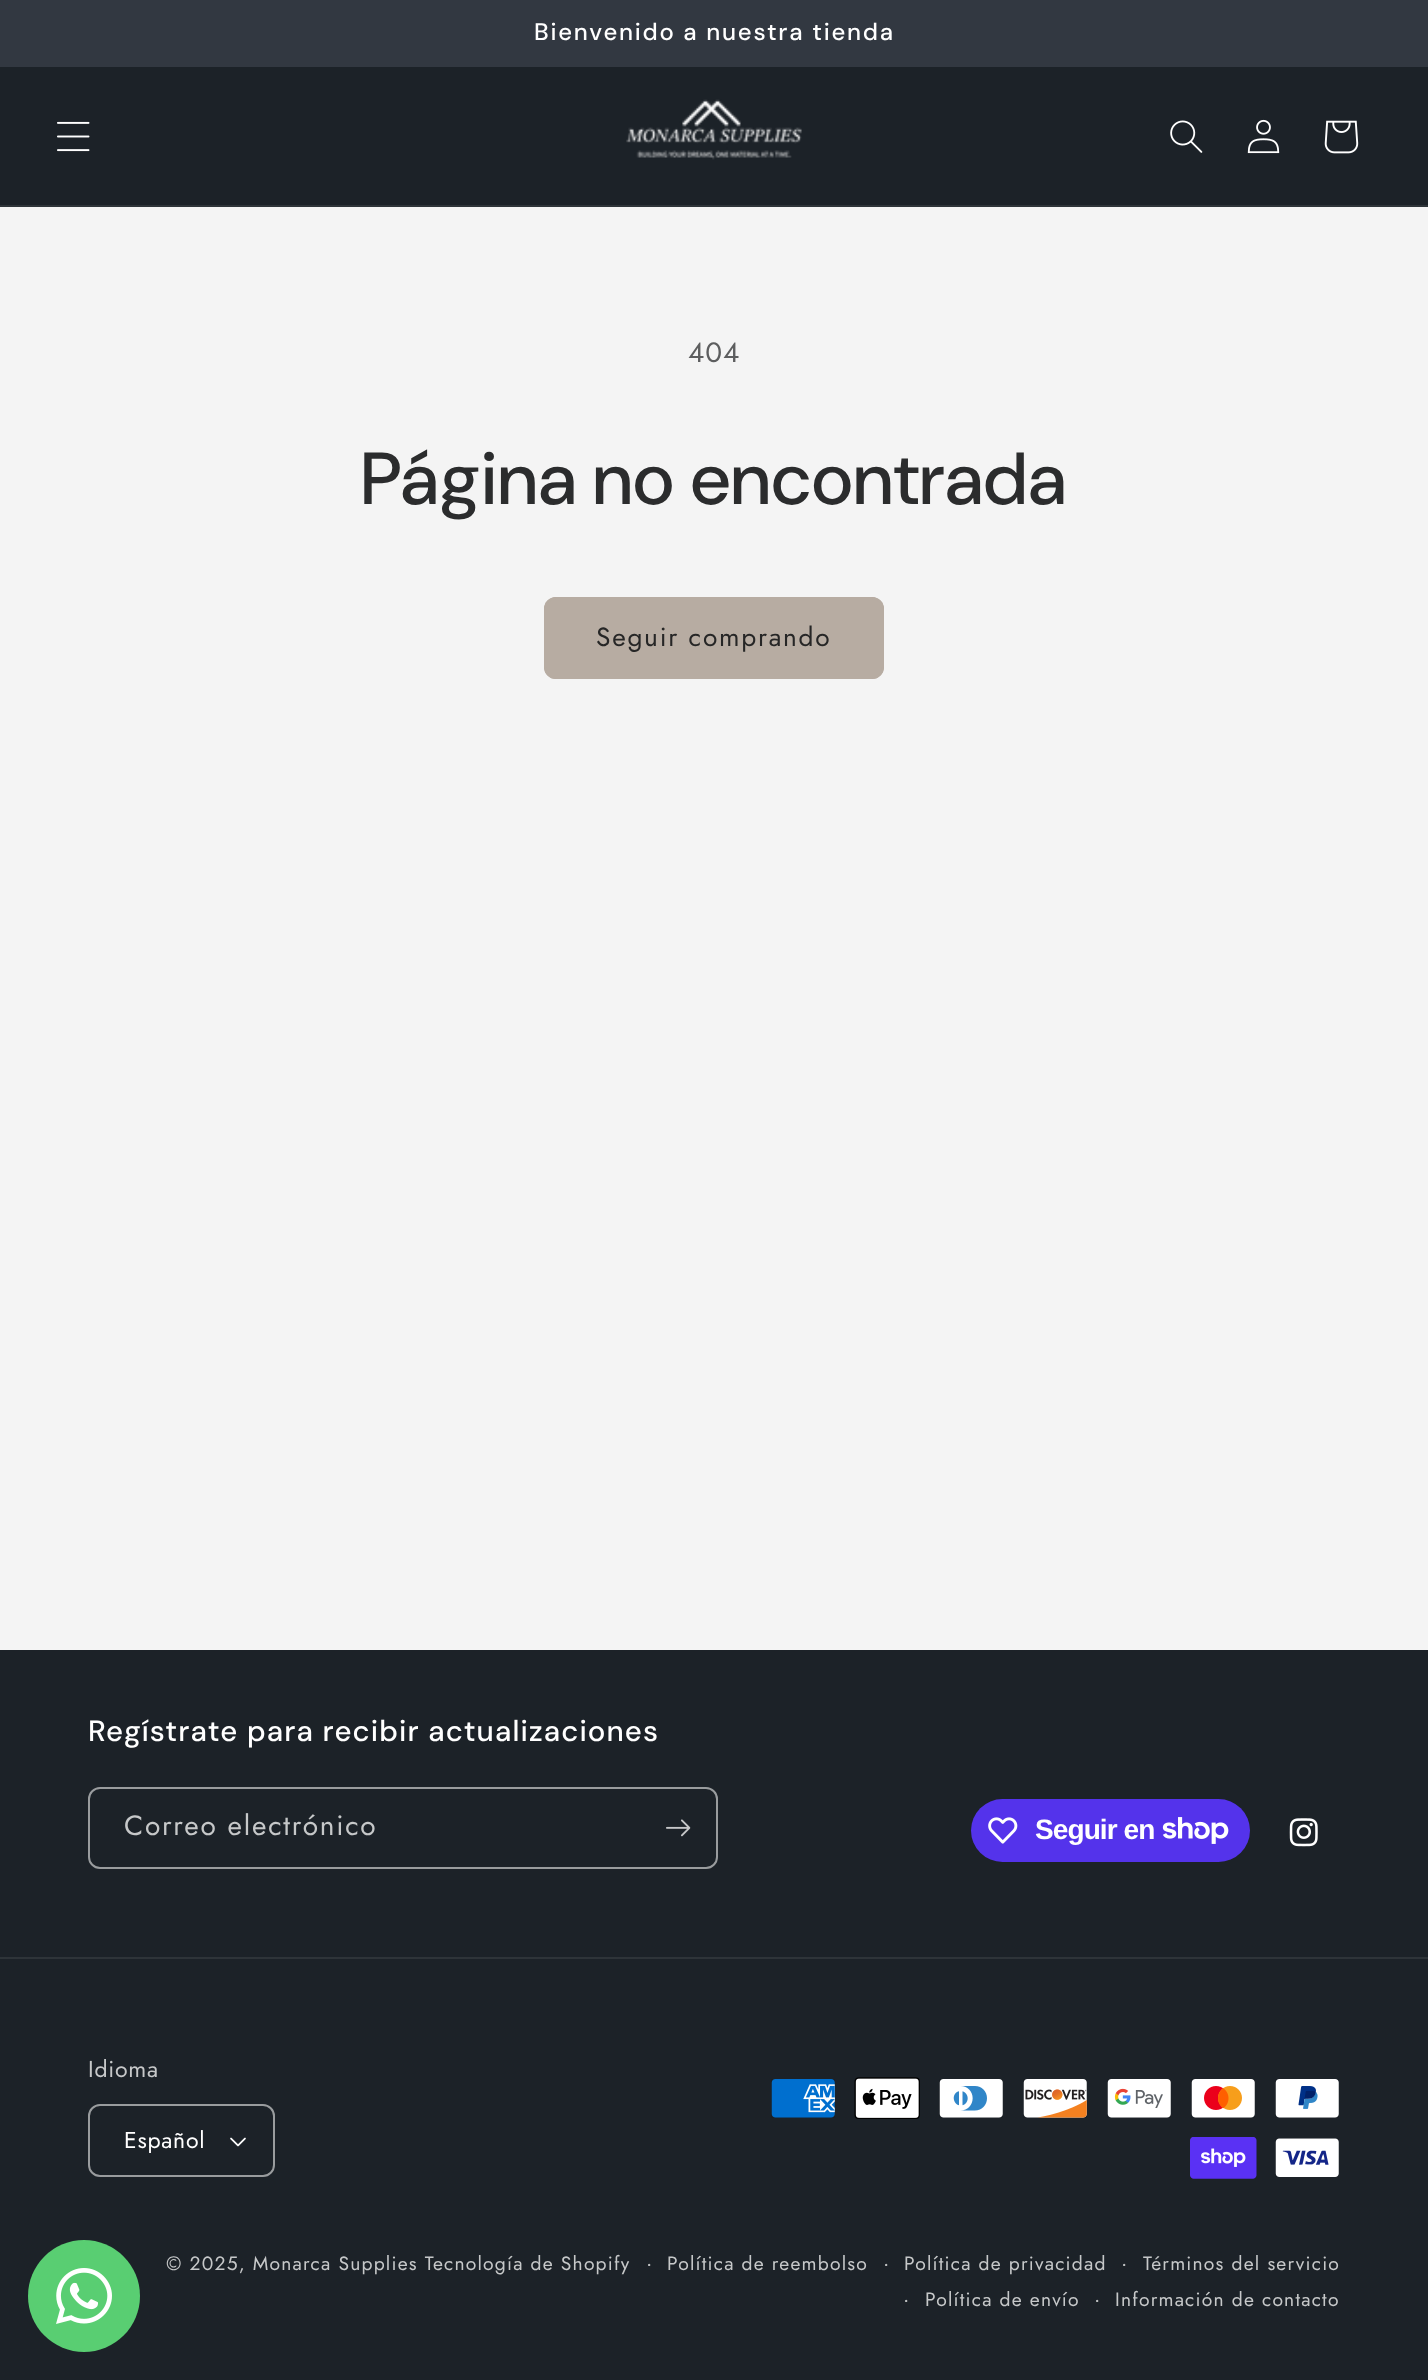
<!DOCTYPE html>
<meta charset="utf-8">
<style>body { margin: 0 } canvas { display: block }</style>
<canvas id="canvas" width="1428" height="2380"></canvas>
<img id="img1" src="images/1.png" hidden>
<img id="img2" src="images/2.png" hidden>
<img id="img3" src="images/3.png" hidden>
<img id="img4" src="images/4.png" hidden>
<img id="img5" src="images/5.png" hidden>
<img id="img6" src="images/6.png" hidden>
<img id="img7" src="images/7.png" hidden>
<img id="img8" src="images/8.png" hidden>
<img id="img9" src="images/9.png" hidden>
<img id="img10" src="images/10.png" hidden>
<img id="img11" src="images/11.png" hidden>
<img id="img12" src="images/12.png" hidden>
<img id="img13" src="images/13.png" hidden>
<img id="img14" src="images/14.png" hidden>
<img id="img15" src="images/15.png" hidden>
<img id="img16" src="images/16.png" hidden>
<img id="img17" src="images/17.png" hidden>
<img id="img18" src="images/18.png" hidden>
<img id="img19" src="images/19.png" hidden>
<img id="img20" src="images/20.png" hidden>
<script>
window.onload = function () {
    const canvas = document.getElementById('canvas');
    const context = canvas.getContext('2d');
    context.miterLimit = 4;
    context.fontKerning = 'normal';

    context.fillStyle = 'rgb(244, 244, 244)';
    context.fillRect(0, 0, 1428, 2380);
    context.fillStyle = 'rgb(50, 56, 65)';
    context.fillRect(0, 0, 1428, 67);
    context.fillStyle = 'rgb(28, 34, 40)';
    context.fillRect(0, 67, 1428, 138);
    context.fillStyle = 'rgb(46, 52, 57)';
    context.fillRect(0, 205, 1428, 2);
    context.drawImage(document.getElementById('img1'), 57, 121, 33, 31);
    context.drawImage(document.getElementById('img2'), 626, 99, 176, 61);
    context.drawImage(document.getElementById('img3'), 1170, 120, 33, 33);
    context.drawImage(document.getElementById('img4'), 1247, 119, 33, 35);
    context.drawImage(document.getElementById('img5'), 1324, 120, 35, 34);
    context.fillStyle = 'rgb(183, 172, 162)';
    context.beginPath();
    context.roundRect(544, 597, 340, 82, 12);
    context.fill();
    context.beginPath();
    context.roundRect(545, 598, 338, 80, 11);
    context.strokeStyle = 'rgb(183, 172, 162)';
    context.lineWidth = 2;
    context.stroke();
    context.fillStyle = 'rgb(28, 34, 40)';
    context.fillRect(0, 1650, 1428, 730);
    context.fillStyle = 'rgb(89, 206, 114)';
    context.beginPath();
    context.arc(84, 2296, 56, 0, 2 * Math.PI);
    context.fill();
    context.drawImage(document.getElementById('img6'), 56, 2268, 56, 56);
    context.beginPath();
    context.roundRect(89, 1788, 628, 80, 11);
    context.strokeStyle = 'rgb(153, 156, 158)';
    context.stroke();
    context.drawImage(document.getElementById('img7'), 666, 1819, 25, 18);
    context.fillStyle = 'rgb(84, 51, 235)';
    context.beginPath();
    context.roundRect(971, 1799, 279, 63, 31.5);
    context.fill();
    context.drawImage(document.getElementById('img8'), 988, 1817, 30, 27);
    context.drawImage(document.getElementById('img9'), 1162, 1817, 67, 27);
    context.drawImage(document.getElementById('img10'), 1289, 1818, 29, 29);
    context.fillStyle = 'rgb(46, 52, 57)';
    context.fillRect(0, 1957, 1428, 2);
    context.drawImage(document.getElementById('img11'), 230, 2137, 16, 10);
    context.beginPath();
    context.roundRect(89, 2105, 185, 71, 11);
    context.stroke();
    context.drawImage(document.getElementById('img12'), 771, 2079, 64, 39);
    context.drawImage(document.getElementById('img13'), 854, 2077, 66, 42);
    context.drawImage(document.getElementById('img14'), 939, 2079, 64, 39);
    context.drawImage(document.getElementById('img15'), 1023, 2079, 64, 39);
    context.drawImage(document.getElementById('img16'), 1107, 2079, 64, 39);
    context.drawImage(document.getElementById('img17'), 1191, 2079, 64, 39);
    context.drawImage(document.getElementById('img18'), 1275, 2079, 64, 39);
    context.drawImage(document.getElementById('img19'), 1190, 2137, 67, 42);
    context.drawImage(document.getElementById('img20'), 1275, 2138, 64, 39);
    context.letterSpacing = '1.75px';
    context.font = '500 23.9px "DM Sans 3"';
    context.fillStyle = 'rgb(255, 255, 255)';
    context.fillText('Bienvenido a nuestra tienda', 534, 40);
    context.letterSpacing = '1px';
    context.font = '28px Jost';
    context.fillStyle = 'rgb(93, 94, 95)';
    context.fillText('404', 688, 362);
    context.letterSpacing = '1.1px';
    context.font = '500 73.5px DM Sans';
    context.fillStyle = 'rgb(43, 44, 45)';
    context.fillText('Página no encontrada', 361, 504);
    context.letterSpacing = '1.75px';
    context.font = '26.25px Jost';
    context.fillStyle = 'rgb(38, 38, 38)';
    context.fillText('Seguir comprando', 596, 646);
    context.letterSpacing = '1.1px';
    context.font = '500 29.4px "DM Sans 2"';
    context.fillStyle = 'rgb(255, 255, 255)';
    context.fillText('Regístrate para recibir actualizaciones', 88, 1741);
    context.letterSpacing = '1.75px';
    context.font = '28px Jost';
    context.fillStyle = 'rgb(198, 200, 201)';
    context.fillText('Correo electrónico', 124, 1835);
    context.letterSpacing = '-0.9px';
    context.font = 'bold 28px Liberation Sans';
    context.fillStyle = 'rgb(255, 255, 255)';
    context.fillText('Seguir en', 1035, 1839);
    context.letterSpacing = '0.75px';
    context.font = '23px Jost';
    context.fillStyle = 'rgb(198, 200, 201)';
    context.fillText('Idioma', 88, 2077);
    context.fillStyle = 'rgb(255, 255, 255)';
    context.fillText('Español', 124, 2148);
    context.letterSpacing = '1.2px';
    context.font = '19.25px Jost';
    context.fillStyle = 'rgb(198, 200, 201)';
    context.fillText('© 2025, Monarca Supplies Tecnología de Shopify', 166, 2270);
    context.font = '21px Jost';
    context.fillText('·', 646, 2270);
    context.font = '19.25px Jost';
    context.fillText('Política de reembolso', 667, 2270);
    context.font = '21px Jost';
    context.fillText('·', 883, 2270);
    context.font = '19.25px Jost';
    context.fillText('Política de privacidad', 904, 2270);
    context.font = '21px Jost';
    context.fillText('·', 1121, 2270);
    context.font = '19.25px Jost';
    context.fillText('Términos del servicio', 1143, 2270);
    context.font = '21px Jost';
    context.fillText('·', 903, 2306);
    context.font = '19.25px Jost';
    context.fillText('Política de envío', 925, 2306);
    context.font = '21px Jost';
    context.fillText('·', 1094, 2306);
    context.font = '19.25px Jost';
    context.fillText('Información de contacto', 1115, 2306);
};
</script>
